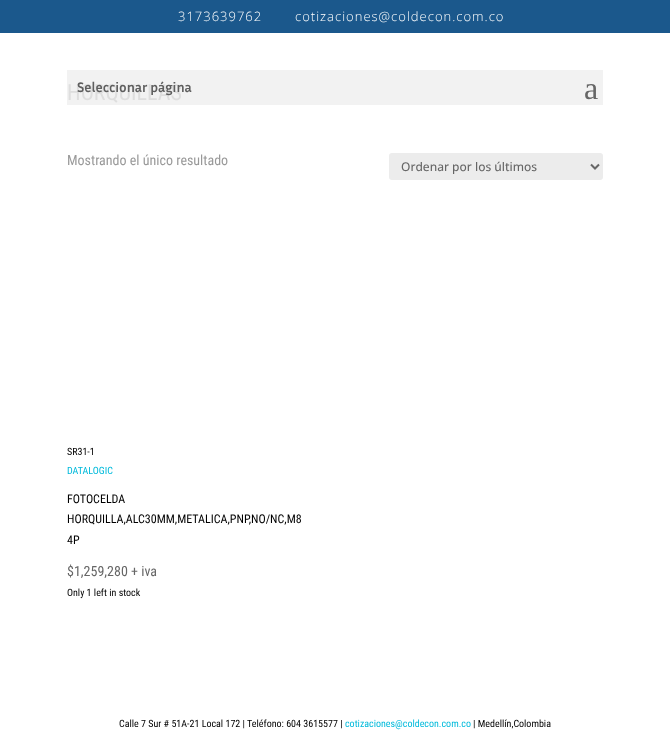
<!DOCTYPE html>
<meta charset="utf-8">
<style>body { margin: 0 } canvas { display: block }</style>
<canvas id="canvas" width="670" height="756"></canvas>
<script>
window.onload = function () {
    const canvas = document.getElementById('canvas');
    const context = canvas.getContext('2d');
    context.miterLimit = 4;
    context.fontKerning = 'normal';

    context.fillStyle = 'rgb(255, 255, 255)';
    context.fillRect(0, 0, 670, 756);
    context.fillStyle = 'rgb(27, 88, 140)';
    context.fillRect(0, 0, 670, 33);
    context.fillStyle = 'rgba(0, 0, 0, 0.05)';
    context.fillRect(67, 70, 536, 35);
    context.fillStyle = 'rgb(236, 236, 236)';
    context.beginPath();
    context.roundRect(389, 153, 214, 27, 3);
    context.fill();
    context.beginPath();
    context.moveTo(591, 164.5);
    context.lineTo(595, 168.5);
    context.lineTo(599, 164.5);
    context.strokeStyle = 'rgb(102, 102, 102)';
    context.lineWidth = 2;
    context.stroke();
    context.letterSpacing = '1px';
    context.font = '300 13px Open Sans';
    context.fillStyle = 'rgb(255, 255, 255)';
    context.fillText('3173639762', 178, 21);
    context.fillText('cotizaciones@coldecon.com.co', 295, 21);
    context.letterSpacing = '0px';
    context.font = '32px Liberation Serif';
    context.fillStyle = 'rgb(102, 102, 102)';
    context.fillText('a', 584, 99);
    context.font = '22px Roboto Condensed';
    context.fillStyle = 'rgb(222, 222, 222)';
    context.fillText('HORQUILLAS', 67, 100);
    context.font = 'bold 14px Inria Sans';
    context.fillStyle = 'rgb(94, 94, 94)';
    context.fillText('Seleccionar página', 77, 92);
    context.font = '14px Roboto Condensed';
    context.fillStyle = 'rgb(153, 153, 153)';
    context.fillText('Mostrando el único resultado', 67, 165);
    context.font = '500 12px Open Sans';
    context.fillStyle = 'rgb(102, 102, 102)';
    context.fillText('Ordenar por los últimos', 401, 171);
    context.font = '10px Roboto Condensed';
    context.fillStyle = 'rgb(0, 0, 0)';
    context.fillText('SR31-1', 67, 455);
    context.fillStyle = 'rgb(0, 186, 219)';
    context.fillText('DATALOGIC', 67, 474);
    context.font = '12px Roboto Condensed';
    context.fillStyle = 'rgb(0, 0, 0)';
    context.fillText('FOTOCELDA', 67, 503);
    context.fillText('HORQUILLA,ALC30MM,METALICA,PNP,NO/NC,M8', 67, 523);
    context.fillText('4P', 67, 544);
    context.font = '14px Roboto Condensed';
    context.fillStyle = 'rgb(102, 102, 102)';
    context.fillText('$1,259,280 + iva', 67, 576);
    context.font = '10px Roboto Condensed';
    context.fillStyle = 'rgb(0, 0, 0)';
    context.fillText('Only 1 left in stock', 67, 596);
    context.fillText('Calle 7 Sur # 51A-21 Local 172 | Teléfono: 604 3615577 |', 119, 727);
    context.fillStyle = 'rgb(0, 186, 219)';
    context.fillText('cotizaciones@coldecon.com.co', 345, 727);
    context.fillStyle = 'rgb(0, 0, 0)';
    context.fillText('| Medellín,Colombia', 473, 727);
};
</script>
